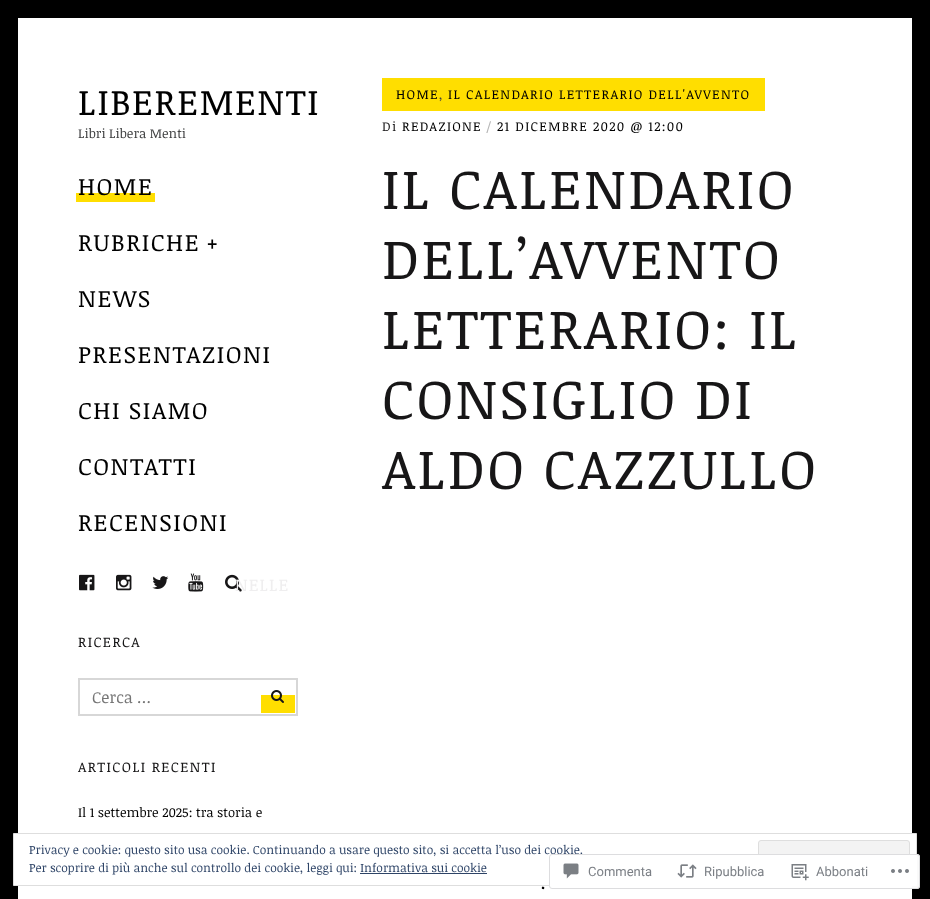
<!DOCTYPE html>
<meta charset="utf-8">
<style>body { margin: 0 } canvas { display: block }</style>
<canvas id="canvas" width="930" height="899"></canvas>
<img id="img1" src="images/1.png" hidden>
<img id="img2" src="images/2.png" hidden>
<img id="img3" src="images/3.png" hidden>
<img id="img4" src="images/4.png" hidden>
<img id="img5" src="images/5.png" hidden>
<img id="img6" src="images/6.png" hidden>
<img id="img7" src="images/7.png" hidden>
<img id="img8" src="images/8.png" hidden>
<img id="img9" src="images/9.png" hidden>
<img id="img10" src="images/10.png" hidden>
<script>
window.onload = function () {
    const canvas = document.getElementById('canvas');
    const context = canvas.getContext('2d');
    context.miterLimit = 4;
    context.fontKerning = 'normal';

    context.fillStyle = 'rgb(255, 255, 255)';
    context.fillRect(0, 0, 930, 899);
    context.fillStyle = 'rgb(0, 0, 0)';
    context.fillRect(18, 0, 894, 18);
    context.fillRect(912, 0, 18, 899);
    context.fillRect(0, 0, 18, 899);
    context.fillStyle = 'rgb(255, 222, 0)';
    context.fillRect(76, 193, 79, 9);
    context.drawImage(document.getElementById('img1'), 79, 574, 16, 17);
    context.drawImage(document.getElementById('img2'), 116, 574, 16, 17);
    context.drawImage(document.getElementById('img3'), 152, 576, 17, 13);
    context.drawImage(document.getElementById('img4'), 188, 573, 16, 19);
    context.drawImage(document.getElementById('img5'), 225, 574, 17, 18);
    context.fillRect(382, 78, 383, 33);
    context.strokeStyle = 'rgb(215, 215, 215)';
    context.lineWidth = 2;
    context.strokeRect(79, 679, 218, 36);
    context.fillRect(261, 695, 34, 18);
    context.drawImage(document.getElementById('img6'), 271, 690, 13, 13);
    context.fillStyle = 'rgb(255, 255, 255)';
    context.beginPath();
    context.rect(13.5, 833.5, 903, 52);
    context.fill();
    context.strokeStyle = 'rgb(222, 222, 222)';
    context.lineWidth = 1;
    context.stroke();
    context.fillStyle = 'rgb(243, 243, 243)';
    context.beginPath();
    context.roundRect(758.5, 840.5, 151, 38, 2.5);
    context.fill();
    context.stroke();
    context.fillStyle = 'rgb(46, 68, 103)';
    context.fillRect(360, 873, 127, 1);
    context.letterSpacing = '1.5px';
    context.font = '36px Noticia Text';
    context.fillStyle = 'rgb(0, 0, 0)';
    context.fillText('LIBEREMENTI', 78, 115);
    context.letterSpacing = '0px';
    context.font = '13px Noticia Text';
    context.fillStyle = 'rgb(62, 63, 64)';
    context.fillText('Libri Libera Menti', 78, 138);
    context.letterSpacing = '1.5px';
    context.font = '24px Noticia Text';
    context.fillStyle = 'rgb(0, 0, 0)';
    context.fillText('HOME', 78, 195);
    context.fillText('RUBRICHE', 78, 251);
    context.fillText('+', 206, 251);
    context.letterSpacing = '1px';
    context.font = '17px Noticia Text';
    context.fillStyle = 'rgb(239, 238, 239)';
    context.fillText('NELLE', 235, 591);
    context.letterSpacing = '1.5px';
    context.font = '24px Noticia Text';
    context.fillStyle = 'rgb(0, 0, 0)';
    context.fillText('NEWS', 78, 307);
    context.fillText('PRESENTAZIONI', 78, 363);
    context.fillText('CHI SIAMO', 78, 419);
    context.fillText('CONTATTI', 78, 475);
    context.fillText('RECENSIONI', 78, 531);
    context.letterSpacing = '1.3px';
    context.font = '13px Noticia Text';
    context.fillText('HOME', 396, 99);
    context.fillStyle = 'rgb(62, 63, 64)';
    context.fillText(',', 439, 99);
    context.fillStyle = 'rgb(0, 0, 0)';
    context.fillText('IL CALENDARIO LETTERARIO DELL\'AVVENTO', 448, 99);
    context.fillStyle = 'rgb(23, 22, 23)';
    context.fillText('Di', 382, 131);
    context.fillStyle = 'rgb(0, 0, 0)';
    context.fillText('REDAZIONE', 402, 131);
    context.fillStyle = 'rgb(181, 181, 181)';
    context.fillText('/', 486, 131);
    context.fillStyle = 'rgb(0, 0, 0)';
    context.fillText('21 DICEMBRE 2020 @ 12:00', 497, 131);
    context.letterSpacing = '2.25px';
    context.font = '56px Noticia Text';
    context.fillStyle = 'rgb(23, 22, 23)';
    context.fillText('IL CALENDARIO', 382, 209);
    context.fillText('DELL’AVVENTO', 382, 279);
    context.fillText('LETTERARIO: IL', 382, 349);
    context.fillText('CONSIGLIO DI', 382, 419);
    context.fillText('ALDO CAZZULLO', 382, 489);
    context.letterSpacing = '0px';
    context.font = 'bold 16px Noticia Text';
    context.fillStyle = 'rgb(0, 0, 0)';
    context.fillText('.', 541, 889);
    context.letterSpacing = '1.4px';
    context.font = '14px Noticia Text';
    context.fillStyle = 'rgb(23, 22, 23)';
    context.fillText('RICERCA', 78, 647);
    context.letterSpacing = '0px';
    context.font = '16px Noticia Text';
    context.fillStyle = 'rgb(117, 117, 117)';
    context.fillText('Cerca …', 92, 703);
    context.letterSpacing = '1.4px';
    context.font = '14px Noticia Text';
    context.fillStyle = 'rgb(23, 22, 23)';
    context.fillText('ARTICOLI RECENTI', 78, 772);
    context.letterSpacing = '0px';
    context.font = '13px Noticia Text';
    context.fillStyle = 'rgb(0, 0, 0)';
    context.fillText('Il 1 settembre 2025: tra storia e', 78, 817);
    context.font = '12px Noticia Text';
    context.fillStyle = 'rgb(46, 68, 103)';
    context.fillText('Privacy e cookie: questo sito usa cookie. Continuando a usare questo sito, si accetta l’uso dei cookie.', 29, 854);
    context.fillText('Per scoprire di più anche sul controllo dei cookie, leggi qui: Informativa sui cookie', 29, 872);
    context.fillStyle = 'rgba(255, 255, 255, 0.98)';
    context.beginPath();
    context.roundRect(549, 854, 371, 35, 3);
    context.fill();
    context.beginPath();
    context.roundRect(549.5, 854.5, 370, 34, 2.5);
    context.strokeStyle = 'rgba(220, 220, 222, 0.98)';
    context.stroke();
    context.drawImage(document.getElementById('img7'), 563, 863, 16, 16);
    context.font = '13px Roboto';
    context.fillStyle = 'rgb(123, 127, 133)';
    context.fillText('Commenta', 588, 876);
    context.drawImage(document.getElementById('img8'), 677, 864, 20, 14);
    context.fillText('Ripubblica', 704, 876);
    context.drawImage(document.getElementById('img9'), 791, 864, 18, 17);
    context.fillText('Abbonati', 816, 876);
    context.drawImage(document.getElementById('img10'), 891, 869, 18, 4);
};
</script>
